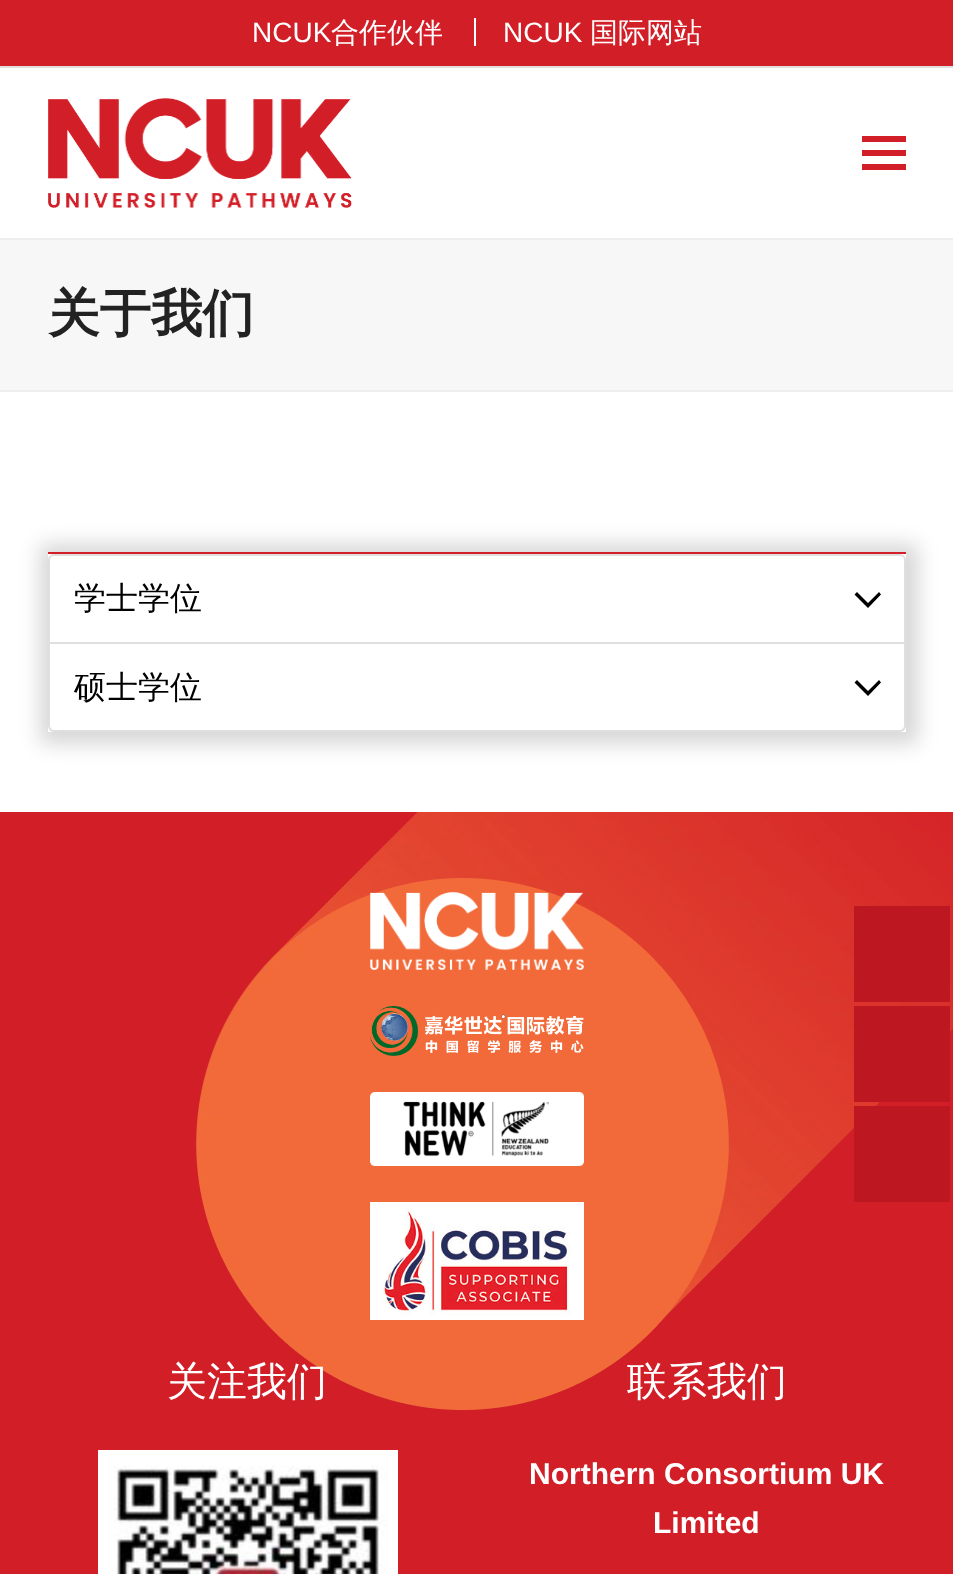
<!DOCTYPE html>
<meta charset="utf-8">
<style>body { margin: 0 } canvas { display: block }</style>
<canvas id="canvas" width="953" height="1574"></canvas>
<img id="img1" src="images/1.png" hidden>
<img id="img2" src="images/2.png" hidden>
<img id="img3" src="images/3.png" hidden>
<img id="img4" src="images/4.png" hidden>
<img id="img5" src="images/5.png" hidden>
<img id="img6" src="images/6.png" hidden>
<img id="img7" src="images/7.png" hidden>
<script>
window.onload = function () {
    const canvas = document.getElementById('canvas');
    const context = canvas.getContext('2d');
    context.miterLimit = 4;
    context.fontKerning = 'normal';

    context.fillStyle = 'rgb(255, 255, 255)';
    context.fillRect(0, 0, 953, 1574);
    context.fillStyle = 'rgb(210, 30, 39)';
    context.fillRect(0, 0, 953, 66);
    context.fillStyle = 'rgb(223, 223, 223)';
    context.fillRect(0, 66, 953, 2);
    context.fillStyle = 'rgb(255, 255, 255)';
    context.fillRect(474, 18, 2, 28);
    context.drawImage(document.getElementById('img1'), 48, 98, 304, 110);
    context.fillStyle = 'rgb(210, 30, 39)';
    context.fillRect(862, 150, 44, 6);
    context.fillRect(862, 136, 44, 6);
    context.fillRect(862, 164, 44, 6);
    context.fillStyle = 'rgb(247, 247, 247)';
    context.fillRect(0, 240, 953, 150);
    context.fillStyle = 'rgb(238, 238, 238)';
    context.fillRect(0, 238, 953, 2);
    context.fillRect(0, 390, 953, 2);
    context.save();
    context.beginPath();
    context.moveTo(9, 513);
    context.lineTo(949, 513);
    context.lineTo(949, 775);
    context.lineTo(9, 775);
    context.closePath();
    context.moveTo(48, 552);
    context.lineTo(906, 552);
    context.lineTo(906, 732);
    context.lineTo(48, 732);
    context.closePath();
    context.clip('evenodd');
    context.fillStyle = 'rgba(0, 0, 0, 0.16)';
    context.filter = 'blur(10px)';
    context.beginPath();
    context.rect(40, 544, 878, 200);
    context.fill();
    context.filter = 'none';
    context.restore();
    context.fillStyle = 'rgb(210, 30, 39)';
    context.fillRect(48, 552, 858, 2);
    context.beginPath();
    context.roundRect(49, 555, 856, 88, [5, 5, 0, 0]);
    context.strokeStyle = 'rgb(223, 223, 223)';
    context.lineWidth = 2;
    context.stroke();
    context.fillStyle = 'rgb(0, 0, 0)';
    context.beginPath();
    context.moveTo(857, 592);
    context.lineTo(854.5, 594.5);
    context.lineTo(868, 608);
    context.lineTo(881, 594.5);
    context.lineTo(879, 592);
    context.lineTo(868, 603);
    context.closePath();
    context.fill();
    context.fillStyle = 'rgb(223, 223, 223)';
    context.beginPath();
    context.moveTo(48, 644);
    context.lineTo(906, 644);
    context.lineTo(906, 726);
    context.bezierCurveTo(906, 729, 903, 732, 900, 732);
    context.lineTo(54, 732);
    context.bezierCurveTo(51, 732, 48, 729, 48, 726);
    context.closePath();
    context.moveTo(50, 644);
    context.lineTo(904, 644);
    context.lineTo(904, 726);
    context.bezierCurveTo(904, 728, 902, 730, 900, 730);
    context.lineTo(54, 730);
    context.bezierCurveTo(52, 730, 50, 728, 50, 726);
    context.closePath();
    context.fill('evenodd');
    context.fillStyle = 'rgb(0, 0, 0)';
    context.beginPath();
    context.moveTo(857, 680);
    context.lineTo(854.5, 682.5);
    context.lineTo(868, 696);
    context.lineTo(881, 682.5);
    context.lineTo(879, 680);
    context.lineTo(868, 691);
    context.closePath();
    context.fill();
    context.fillStyle = 'rgb(210, 30, 39)';
    context.fillRect(0, 812, 953, 762);
    context.drawImage(document.getElementById('img2'), 196, 812, 757, 598);
    context.drawImage(document.getElementById('img3'), 370, 892, 214, 78);
    context.drawImage(document.getElementById('img4'), 370, 1006, 214, 50);
    context.drawImage(document.getElementById('img5'), 370, 1092, 214, 74);
    context.drawImage(document.getElementById('img6'), 370, 1202, 214, 118);
    context.drawImage(document.getElementById('img7'), 98, 1450, 300, 124);
    context.fillStyle = 'rgb(189, 24, 34)';
    context.fillRect(854, 906, 96, 96);
    context.fillRect(854, 1006, 96, 96);
    context.fillRect(854, 1106, 96, 96);
    context.font = '28px Liberation Sans';
    context.fillStyle = 'rgb(255, 255, 255)';
    context.fillText('NCUK', 252, 42);
    context.font = '500 28px WenQuanYi Zen Hei';
    context.fillText('合作伙伴', 331, 42);
    context.font = '28px Liberation Sans';
    context.fillText('NCUK', 503, 42);
    context.font = '500 28px WenQuanYi Zen Hei';
    context.fillText('国际网站', 590, 42);
    context.font = 'bold 51.5px WenQuanYi Zen Hei';
    context.fillStyle = 'rgb(34, 34, 34)';
    context.fillText('关于我们', 48, 331);
    context.font = '500 32px WenQuanYi Zen Hei';
    context.fillStyle = 'rgb(0, 0, 0)';
    context.fillText('学士学位', 74, 609);
    context.fillText('硕士学位', 74, 698);
    context.font = '500 40px WenQuanYi Zen Hei';
    context.fillStyle = 'rgb(255, 255, 255)';
    context.fillText('关注我们', 167, 1395);
    context.fillText('联系我们', 627, 1395);
    context.font = 'bold 30px Liberation Sans';
    context.fillText('Northern Consortium UK', 529, 1484);
    context.fillText('Limited', 653, 1533);
};
</script>
